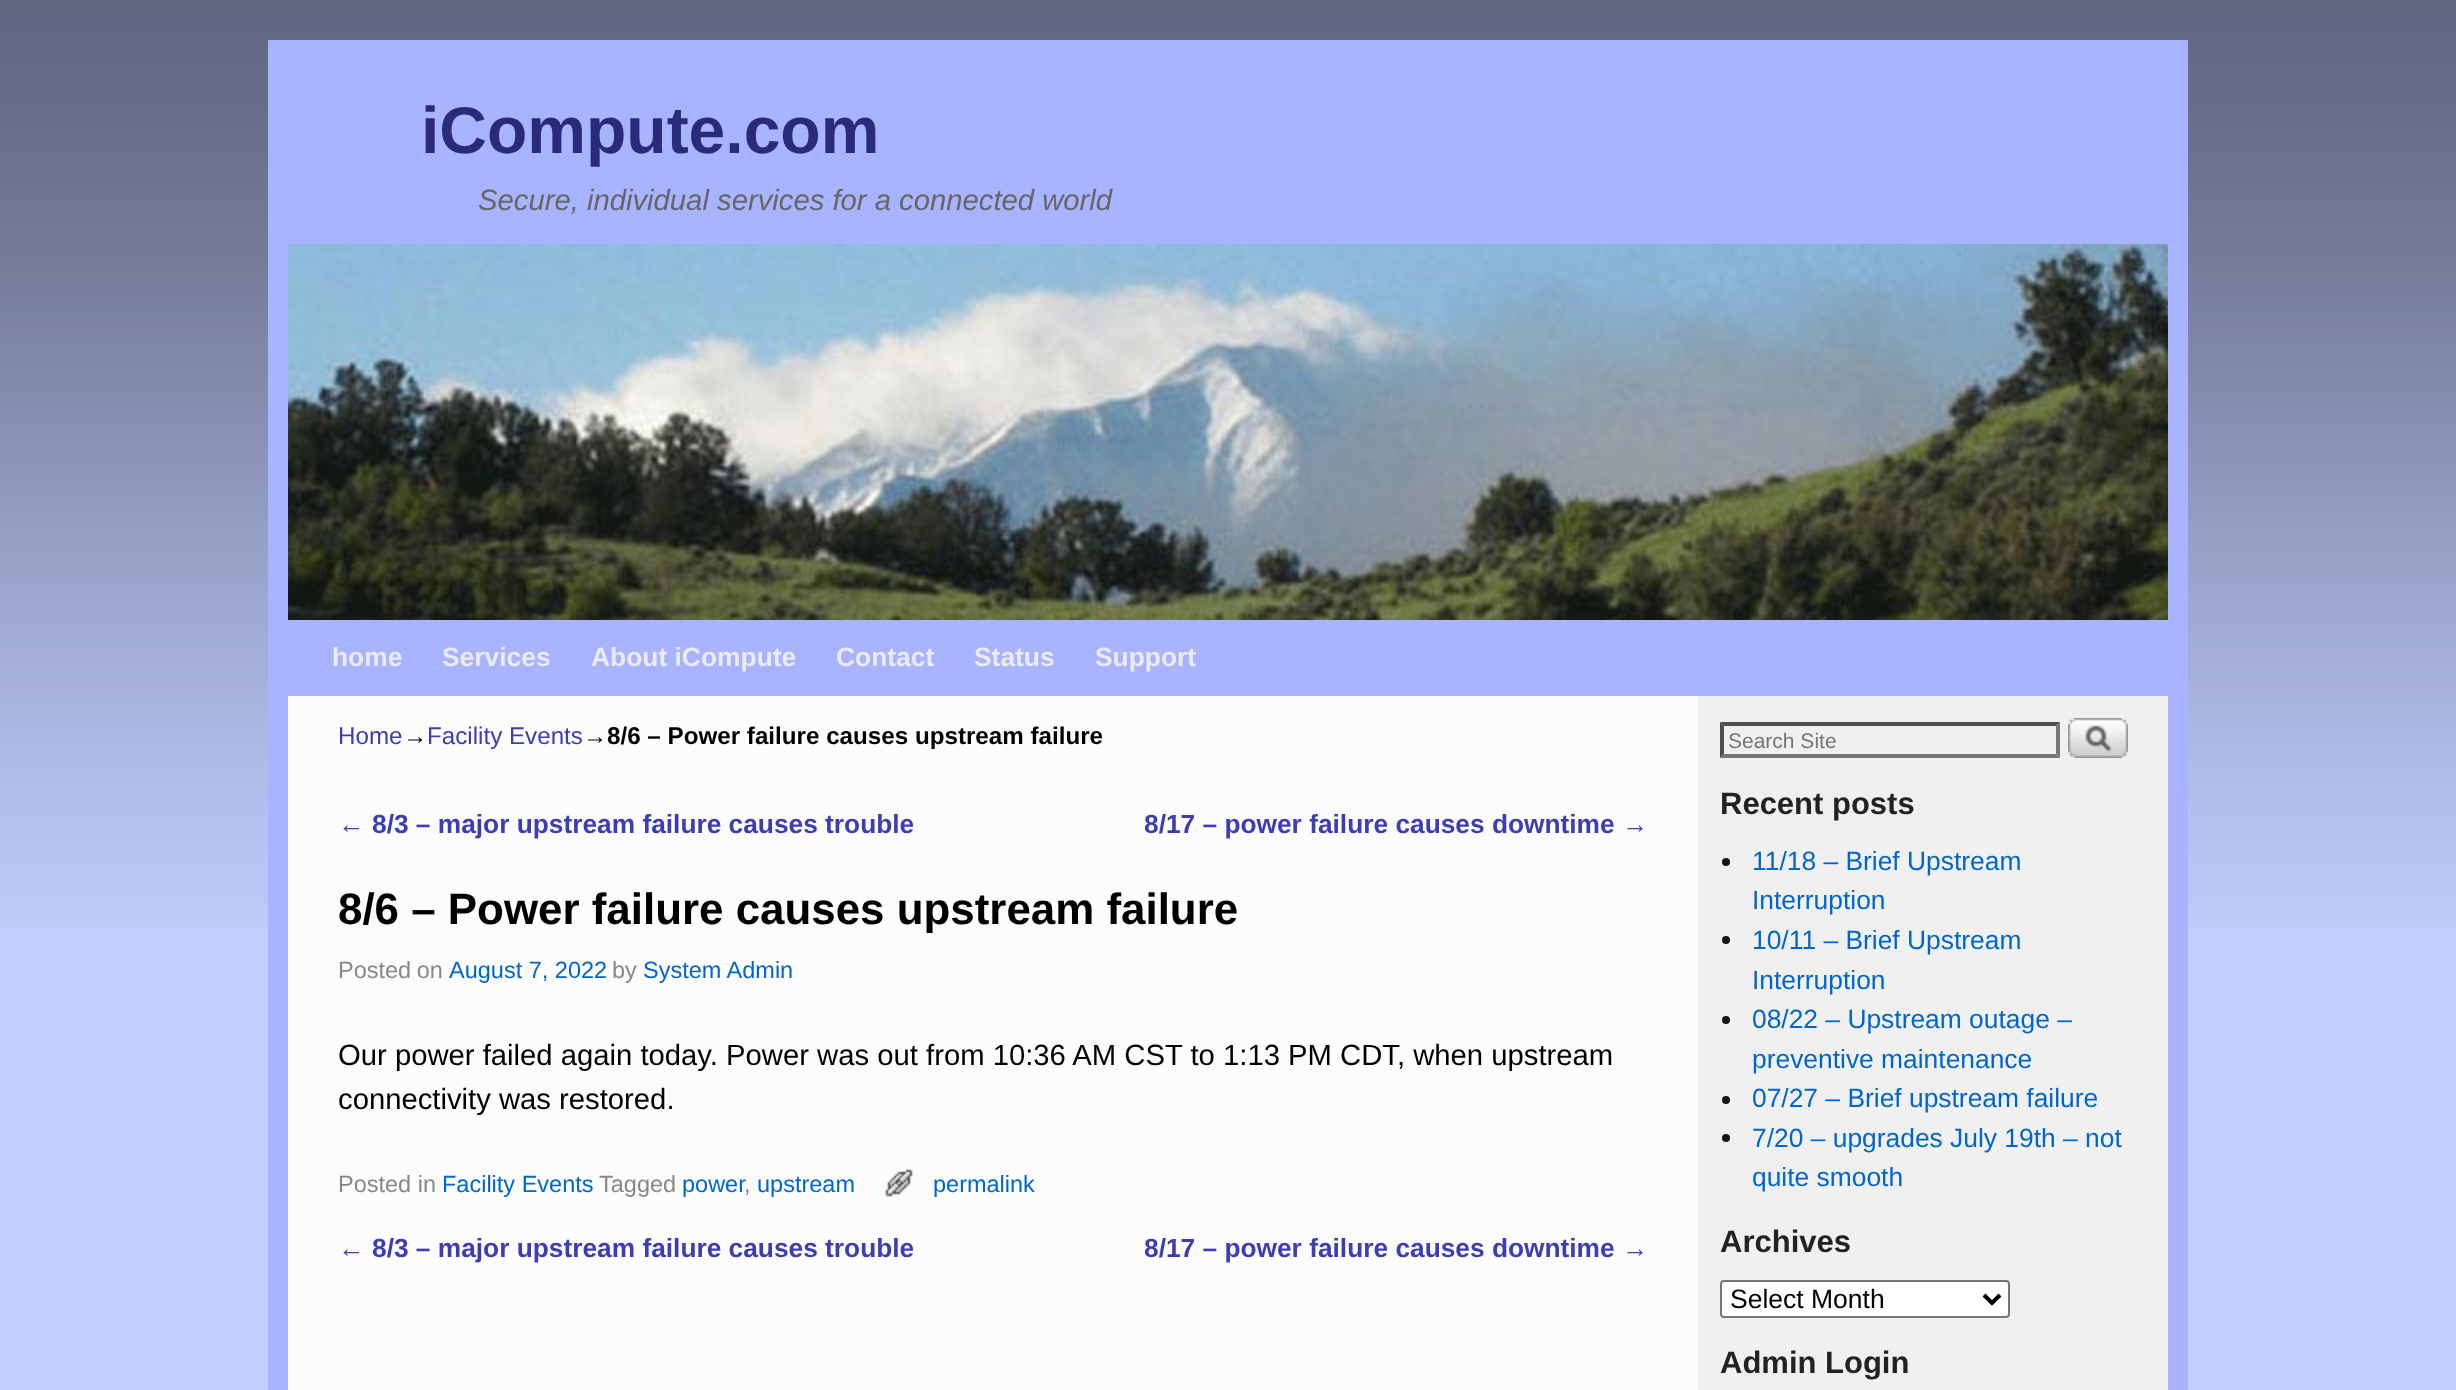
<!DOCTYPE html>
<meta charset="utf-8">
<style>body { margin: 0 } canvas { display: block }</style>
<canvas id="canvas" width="2456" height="1390"></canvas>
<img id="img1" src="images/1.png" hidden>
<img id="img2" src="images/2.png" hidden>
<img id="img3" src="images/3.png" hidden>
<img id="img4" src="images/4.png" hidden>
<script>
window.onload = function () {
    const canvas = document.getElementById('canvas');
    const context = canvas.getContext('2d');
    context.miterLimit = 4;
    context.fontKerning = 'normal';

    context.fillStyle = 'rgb(194, 206, 255)';
    context.fillRect(0, 0, 2456, 1390);
    context.drawImage(document.getElementById('img1'), 0, 0, 2456, 927);
    context.fillStyle = 'rgb(168, 180, 255)';
    context.fillRect(268, 40, 1920, 1350);
    context.drawImage(document.getElementById('img2'), 288, 244, 1880, 376);
    context.fillStyle = 'rgb(252, 252, 252)';
    context.fillRect(288, 696, 1410, 694);
    context.drawImage(document.getElementById('img3'), 885, 1169, 28, 28);
    context.fillStyle = 'rgb(240, 240, 240)';
    context.fillRect(1698, 696, 470, 694);
    context.fillStyle = 'rgb(79, 79, 79)';
    context.beginPath();
    context.moveTo(1720, 722);
    context.lineTo(2060, 722);
    context.lineTo(2056, 726);
    context.lineTo(1724, 726);
    context.closePath();
    context.fill();
    context.fillStyle = 'rgb(118, 118, 118)';
    context.beginPath();
    context.moveTo(2060, 722);
    context.lineTo(2060, 758);
    context.lineTo(2056, 754);
    context.lineTo(2056, 726);
    context.closePath();
    context.fill();
    context.beginPath();
    context.moveTo(2060, 758);
    context.lineTo(1720, 758);
    context.lineTo(1724, 754);
    context.lineTo(2056, 754);
    context.closePath();
    context.fill();
    context.fillStyle = 'rgb(79, 79, 79)';
    context.beginPath();
    context.moveTo(1720, 758);
    context.lineTo(1720, 722);
    context.lineTo(1724, 726);
    context.lineTo(1724, 754);
    context.closePath();
    context.fill();
    context.drawImage(document.getElementById('img4'), 2068, 718, 60, 40);
    context.fillStyle = 'rgb(20, 20, 20)';
    context.beginPath();
    context.arc(1726, 862, 4, 0, 2 * Math.PI);
    context.fill();
    context.beginPath();
    context.arc(1726, 940, 4, 0, 2 * Math.PI);
    context.fill();
    context.beginPath();
    context.arc(1726, 1020, 4, 0, 2 * Math.PI);
    context.fill();
    context.beginPath();
    context.arc(1726, 1100, 4, 0, 2 * Math.PI);
    context.fill();
    context.beginPath();
    context.arc(1726, 1138, 4, 0, 2 * Math.PI);
    context.fill();
    context.fillStyle = 'rgb(255, 255, 255)';
    context.beginPath();
    context.roundRect(1721, 1281, 288, 36, 3);
    context.fill();
    context.strokeStyle = 'rgb(118, 118, 118)';
    context.lineWidth = 2;
    context.stroke();
    context.beginPath();
    context.moveTo(1984, 1295);
    context.lineTo(1992, 1303);
    context.lineTo(2000, 1295);
    context.strokeStyle = 'rgb(0, 0, 0)';
    context.lineWidth = 4;
    context.stroke();
    context.font = 'bold 66px Liberation Sans';
    context.fillStyle = 'rgb(42, 42, 125)';
    context.fillText('iCompute.com', 421, 153);
    context.font = 'italic 29.25px Liberation Sans';
    context.fillStyle = 'rgb(102, 102, 102)';
    context.fillText('Secure, individual services for a connected world', 478, 210);
    context.font = 'bold 26.4px Liberation Sans';
    context.fillStyle = 'rgb(235, 235, 235)';
    context.fillText('home', 332, 666);
    context.fillText('Services', 442, 666);
    context.fillText('About iCompute', 591, 666);
    context.fillText('Contact', 836, 666);
    context.fillText('Status', 974, 666);
    context.fillText('Support', 1095, 666);
    context.font = '24.2px Liberation Sans';
    context.fillStyle = 'rgb(60, 60, 179)';
    context.fillText('Home', 338, 744);
    context.fillStyle = 'rgb(0, 0, 0)';
    context.fillText('→', 403, 744);
    context.fillStyle = 'rgb(60, 60, 179)';
    context.fillText('Facility Events', 427, 744);
    context.fillStyle = 'rgb(0, 0, 0)';
    context.fillText('→', 583, 744);
    context.font = 'bold 24.2px Liberation Sans';
    context.fillText('8/6 – Power failure causes upstream failure', 607, 744);
    context.font = '26.3px Liberation Sans';
    context.fillStyle = 'rgb(60, 60, 179)';
    context.fillText('←', 338, 833);
    context.font = 'bold 26.3px Liberation Sans';
    context.fillText('8/3 – major upstream failure causes trouble', 372, 833);
    context.fillText('8/17 – power failure causes downtime', 1144, 833);
    context.font = '26.3px Liberation Sans';
    context.fillText('→', 1622, 833);
    context.font = 'bold 43.9px Liberation Sans';
    context.fillStyle = 'rgb(0, 0, 0)';
    context.fillText('8/6 – Power failure causes upstream failure', 338, 924);
    context.wordSpacing = '-1px';
    context.font = '23.5px Liberation Sans';
    context.fillStyle = 'rgb(136, 136, 136)';
    context.fillText('Posted on', 338, 978);
    context.wordSpacing = '0px';
    context.fillStyle = 'rgb(0, 102, 204)';
    context.fillText('August 7, 2022', 449, 978);
    context.fillStyle = 'rgb(136, 136, 136)';
    context.fillText('by', 612, 978);
    context.fillStyle = 'rgb(0, 102, 204)';
    context.fillText('System Admin', 643, 978);
    context.font = '29.25px Liberation Sans';
    context.fillStyle = 'rgb(0, 0, 0)';
    context.fillText('Our power failed again today. Power was out from 10:36 AM CST to 1:13 PM CDT, when upstream', 338, 1065);
    context.fillText('connectivity was restored.', 338, 1109);
    context.font = '23.5px Liberation Sans';
    context.fillStyle = 'rgb(136, 136, 136)';
    context.fillText('Posted in', 338, 1192);
    context.fillStyle = 'rgb(0, 102, 204)';
    context.fillText('Facility Events', 442, 1192);
    context.fillStyle = 'rgb(136, 136, 136)';
    context.fillText('Tagged', 599, 1192);
    context.fillStyle = 'rgb(0, 102, 204)';
    context.fillText('power', 682, 1192);
    context.fillStyle = 'rgb(136, 136, 136)';
    context.fillText(',', 744, 1192);
    context.fillStyle = 'rgb(0, 102, 204)';
    context.fillText('upstream', 757, 1192);
    context.fillText('permalink', 933, 1192);
    context.font = '26.3px Liberation Sans';
    context.fillStyle = 'rgb(60, 60, 179)';
    context.fillText('←', 338, 1257);
    context.font = 'bold 26.3px Liberation Sans';
    context.fillText('8/3 – major upstream failure causes trouble', 372, 1257);
    context.fillText('8/17 – power failure causes downtime', 1144, 1257);
    context.font = '26.3px Liberation Sans';
    context.fillText('→', 1622, 1257);
    context.font = '21px Liberation Sans';
    context.fillStyle = 'rgb(117, 117, 117)';
    context.fillText('Search Site', 1728, 748);
    context.font = 'bold 31px Liberation Sans';
    context.fillStyle = 'rgb(34, 34, 34)';
    context.fillText('Recent posts', 1720, 814);
    context.font = '26.4px Liberation Sans';
    context.fillStyle = 'rgb(0, 102, 204)';
    context.fillText('11/18 – Brief Upstream', 1752, 870);
    context.fillText('Interruption', 1752, 909);
    context.fillText('10/11 – Brief Upstream', 1752, 949);
    context.fillText('Interruption', 1752, 989);
    context.fillText('08/22 – Upstream outage –', 1752, 1028);
    context.fillText('preventive maintenance', 1752, 1068);
    context.fillText('07/27 – Brief upstream failure', 1752, 1107);
    context.fillText('7/20 – upgrades July 19th – not', 1752, 1147);
    context.fillText('quite smooth', 1752, 1186);
    context.font = 'bold 31px Liberation Sans';
    context.fillStyle = 'rgb(34, 34, 34)';
    context.fillText('Archives', 1720, 1252);
    context.font = '26.5px Liberation Sans';
    context.fillStyle = 'rgb(0, 0, 0)';
    context.fillText('Select Month', 1730, 1308);
    context.font = 'bold 31px Liberation Sans';
    context.fillStyle = 'rgb(34, 34, 34)';
    context.fillText('Admin Login', 1720, 1373);
};
</script>
